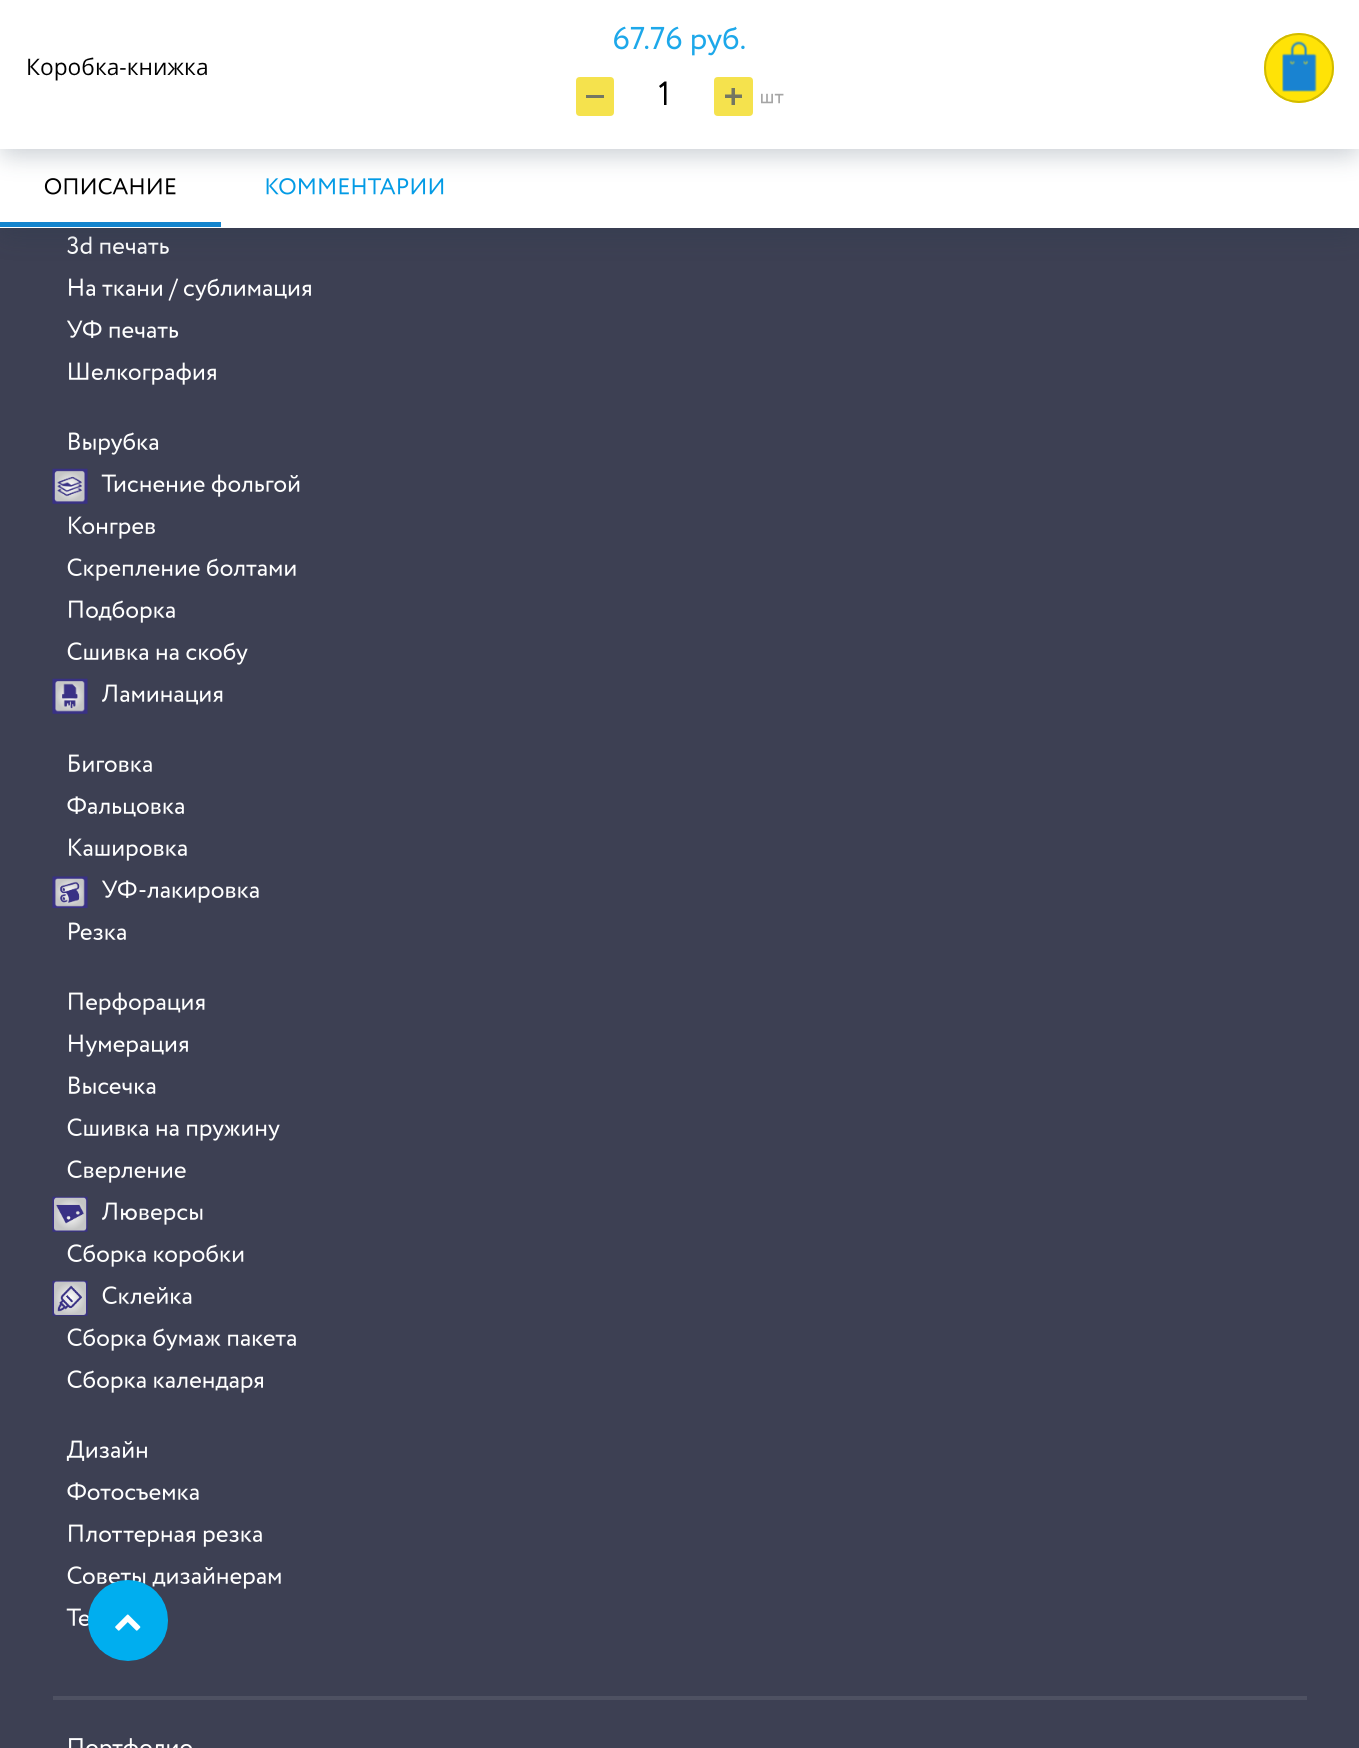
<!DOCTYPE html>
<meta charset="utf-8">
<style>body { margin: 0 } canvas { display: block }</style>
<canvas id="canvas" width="1359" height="1748"></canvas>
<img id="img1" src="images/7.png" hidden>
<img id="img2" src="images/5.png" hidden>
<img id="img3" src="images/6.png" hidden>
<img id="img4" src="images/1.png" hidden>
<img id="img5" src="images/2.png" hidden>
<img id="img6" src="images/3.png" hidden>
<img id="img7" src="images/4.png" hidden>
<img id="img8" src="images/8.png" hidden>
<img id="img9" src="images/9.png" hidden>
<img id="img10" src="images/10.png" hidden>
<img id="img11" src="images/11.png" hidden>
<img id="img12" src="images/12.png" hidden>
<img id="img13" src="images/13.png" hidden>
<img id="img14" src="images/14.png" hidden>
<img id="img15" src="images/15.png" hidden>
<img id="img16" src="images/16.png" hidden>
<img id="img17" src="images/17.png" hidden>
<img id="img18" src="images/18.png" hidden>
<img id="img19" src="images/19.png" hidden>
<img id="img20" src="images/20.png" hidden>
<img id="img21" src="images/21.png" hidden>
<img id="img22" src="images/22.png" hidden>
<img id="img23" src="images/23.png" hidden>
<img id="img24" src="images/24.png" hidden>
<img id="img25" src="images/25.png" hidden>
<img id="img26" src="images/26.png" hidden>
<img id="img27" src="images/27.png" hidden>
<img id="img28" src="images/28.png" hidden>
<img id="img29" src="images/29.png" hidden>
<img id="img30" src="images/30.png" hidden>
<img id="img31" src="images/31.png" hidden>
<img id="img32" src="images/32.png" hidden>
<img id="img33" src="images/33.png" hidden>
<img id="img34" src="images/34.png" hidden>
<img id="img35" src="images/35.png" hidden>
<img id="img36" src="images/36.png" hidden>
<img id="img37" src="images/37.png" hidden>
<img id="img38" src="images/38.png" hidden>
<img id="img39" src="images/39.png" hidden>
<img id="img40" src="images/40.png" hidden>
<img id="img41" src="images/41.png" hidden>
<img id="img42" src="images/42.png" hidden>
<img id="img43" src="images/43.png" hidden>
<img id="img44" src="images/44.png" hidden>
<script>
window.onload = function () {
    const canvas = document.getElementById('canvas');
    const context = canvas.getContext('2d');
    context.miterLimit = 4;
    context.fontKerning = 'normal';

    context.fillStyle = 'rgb(61, 64, 83)';
    context.fillRect(0, 0, 1359, 1748);
    context.drawImage(document.getElementById('img1'), 67, 236, 102, 18);
    context.fillStyle = 'rgba(32, 54, 74, 0.23)';
    context.filter = 'blur(12px)';
    context.beginPath();
    context.rect(0, 156, 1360, 79);
    context.fill();
    context.filter = 'none';
    context.fillStyle = 'rgb(255, 255, 255)';
    context.fillRect(0, 149, 1359, 79);
    context.drawImage(document.getElementById('img2'), 44, 178, 132, 17);
    context.drawImage(document.getElementById('img3'), 266, 178, 178, 17);
    context.fillStyle = 'rgba(32, 54, 74, 0.23)';
    context.filter = 'blur(12px)';
    context.beginPath();
    context.rect(0, 7, 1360, 149);
    context.fill();
    context.filter = 'none';
    context.fillStyle = 'rgb(255, 255, 255)';
    context.fillRect(0, 0, 1359, 149);
    context.drawImage(document.getElementById('img4'), 614, 26, 131, 30);
    context.fillStyle = 'rgb(245, 226, 77)';
    context.beginPath();
    context.roundRect(576, 77, 38, 39, 4);
    context.fill();
    context.fillStyle = 'rgb(115, 119, 99)';
    context.fillRect(586, 95, 18, 3);
    context.fillStyle = 'rgb(0, 0, 0)';
    context.beginPath();
    context.moveTo(659, 86);
    context.lineTo(660.5, 88);
    context.lineTo(664, 85.5);
    context.lineTo(664, 105);
    context.lineTo(666.5, 105);
    context.lineTo(666.5, 81.5);
    context.lineTo(664.5, 81.5);
    context.closePath();
    context.fill();
    context.fillStyle = 'rgb(245, 226, 77)';
    context.beginPath();
    context.roundRect(714, 77, 39, 39, 4);
    context.fill();
    context.drawImage(document.getElementById('img5'), 725, 88, 17, 17);
    context.drawImage(document.getElementById('img6'), 761, 93, 23, 11);
    context.fillStyle = 'rgb(255, 227, 6)';
    context.beginPath();
    context.arc(1299, 68, 35, 0, 2 * Math.PI);
    context.fill();
    context.drawImage(document.getElementById('img7'), 1282, 41, 35, 51);
    context.beginPath();
    context.arc(1299, 68, 34, 0, 2 * Math.PI);
    context.strokeStyle = 'rgb(209, 186, 0)';
    context.lineWidth = 2;
    context.stroke();
    context.fillStyle = 'rgb(20, 133, 206)';
    context.fillRect(0, 222, 221, 5);
    context.drawImage(document.getElementById('img8'), 69, 278, 242, 23);
    context.drawImage(document.getElementById('img9'), 67, 320, 112, 18);
    context.drawImage(document.getElementById('img10'), 69, 362, 147, 23);
    context.drawImage(document.getElementById('img11'), 69, 432, 90, 23);
    context.drawImage(document.getElementById('img12'), 52, 468, 36, 36);
    context.drawImage(document.getElementById('img13'), 101, 474, 199, 23);
    context.drawImage(document.getElementById('img14'), 69, 516, 86, 23);
    context.drawImage(document.getElementById('img15'), 67, 558, 229, 23);
    context.drawImage(document.getElementById('img16'), 69, 600, 106, 23);
    context.drawImage(document.getElementById('img17'), 67, 642, 181, 23);
    context.drawImage(document.getElementById('img18'), 52, 678, 36, 36);
    context.drawImage(document.getElementById('img19'), 102, 684, 121, 21);
    context.drawImage(document.getElementById('img20'), 69, 754, 83, 18);
    context.drawImage(document.getElementById('img21'), 67, 796, 117, 21);
    context.drawImage(document.getElementById('img22'), 69, 838, 118, 23);
    context.drawImage(document.getElementById('img23'), 52, 876, 36, 32);
    context.drawImage(document.getElementById('img24'), 102, 880, 157, 23);
    context.drawImage(document.getElementById('img25'), 69, 922, 57, 18);
    context.drawImage(document.getElementById('img26'), 69, 992, 136, 23);
    context.drawImage(document.getElementById('img27'), 69, 1034, 119, 23);
    context.drawImage(document.getElementById('img28'), 69, 1076, 87, 18);
    context.drawImage(document.getElementById('img29'), 67, 1118, 213, 23);
    context.drawImage(document.getElementById('img30'), 67, 1160, 119, 23);
    context.drawImage(document.getElementById('img31'), 52, 1196, 36, 36);
    context.drawImage(document.getElementById('img32'), 102, 1202, 101, 23);
    context.drawImage(document.getElementById('img33'), 67, 1244, 177, 23);
    context.drawImage(document.getElementById('img34'), 52, 1280, 36, 36);
    context.drawImage(document.getElementById('img35'), 102, 1286, 90, 18);
    context.drawImage(document.getElementById('img36'), 67, 1328, 229, 23);
    context.drawImage(document.getElementById('img37'), 67, 1370, 196, 23);
    context.drawImage(document.getElementById('img38'), 66, 1440, 81, 21);
    context.drawImage(document.getElementById('img39'), 67, 1482, 132, 18);
    context.drawImage(document.getElementById('img40'), 69, 1524, 193, 23);
    context.drawImage(document.getElementById('img41'), 67, 1566, 214, 23);
    context.drawImage(document.getElementById('img42'), 66, 1608, 23, 18);
    context.fillStyle = 'rgb(78, 81, 98)';
    context.fillRect(53, 1696, 1254, 4);
    context.drawImage(document.getElementById('img43'), 69, 1738, 123, 10);
    context.fillStyle = 'rgb(0, 174, 239)';
    context.beginPath();
    context.roundRect(88, 1580, 80, 81, 40);
    context.fill();
    context.drawImage(document.getElementById('img44'), 115, 1614, 26, 17);
    context.font = '22.75px Open Sans';
    context.fillStyle = 'rgb(0, 0, 0)';
    context.fillText('Коробка-книжка', 26, 75);
};
</script>
